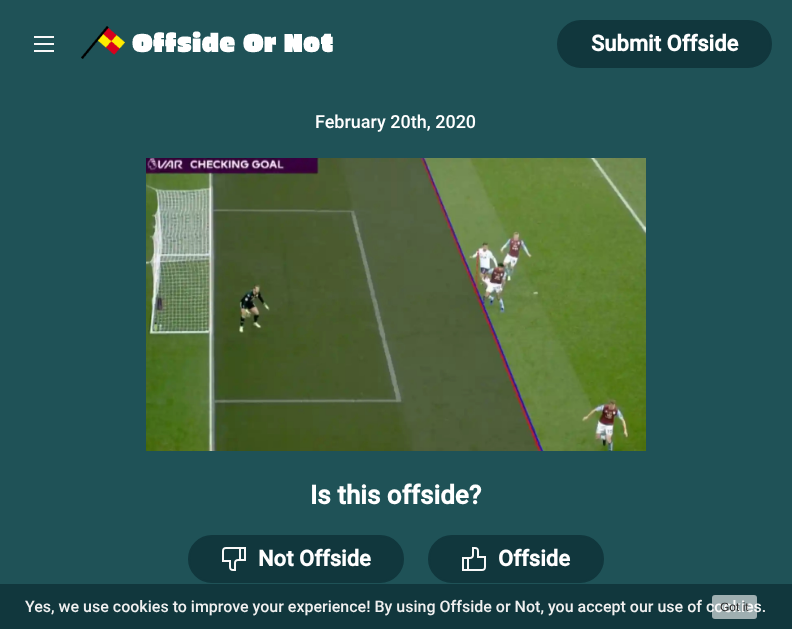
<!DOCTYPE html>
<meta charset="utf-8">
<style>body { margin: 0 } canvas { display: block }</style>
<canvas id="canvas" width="792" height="629"></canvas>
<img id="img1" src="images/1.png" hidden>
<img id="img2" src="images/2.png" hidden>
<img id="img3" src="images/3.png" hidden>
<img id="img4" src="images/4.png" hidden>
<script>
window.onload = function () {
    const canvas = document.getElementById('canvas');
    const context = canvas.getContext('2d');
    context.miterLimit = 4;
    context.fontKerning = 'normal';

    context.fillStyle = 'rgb(31, 82, 87)';
    context.fillRect(0, 0, 792, 629);
    context.beginPath();
    context.moveTo(34, 51);
    context.lineTo(54, 51);
    context.moveTo(34, 37);
    context.lineTo(54, 37);
    context.moveTo(34, 44);
    context.lineTo(54, 44);
    context.strokeStyle = 'rgb(248, 248, 248)';
    context.lineWidth = 2;
    context.stroke();
    context.drawImage(document.getElementById('img1'), 81, 26, 252, 33);
    context.fillStyle = 'rgb(17, 55, 61)';
    context.beginPath();
    context.roundRect(558, 21, 213, 46, 23);
    context.fill();
    context.strokeStyle = 'rgb(17, 55, 61)';
    context.stroke();
    context.drawImage(document.getElementById('img2'), 146, 158, 500, 293);
    context.beginPath();
    context.roundRect(189, 536, 214, 46, 23);
    context.fill();
    context.stroke();
    context.drawImage(document.getElementById('img3'), 222, 547, 24, 24);
    context.beginPath();
    context.roundRect(429, 536, 174, 46, 23);
    context.fill();
    context.stroke();
    context.drawImage(document.getElementById('img4'), 462, 547, 24, 24);
    context.fillRect(0, 584, 792, 45);
    context.font = 'bold 22px Roboto';
    context.fillStyle = 'rgb(255, 255, 255)';
    context.fillText('Submit Offside', 591, 51);
    context.font = '500 18px Roboto';
    context.fillText('February 20th, 2020', 315, 128);
    context.font = 'bold 26px Roboto';
    context.fillText('Is this offside?', 310, 504);
    context.font = 'bold 22px Roboto';
    context.fillText('Not Offside', 258, 566);
    context.fillText('Offside', 498, 566);
    context.font = '500 16px Roboto';
    context.fillStyle = 'rgb(240, 240, 240)';
    context.fillText('Yes, we use cookies to improve your experience! By using Offside or Not, you accept our use of cookies.', 25, 612);
    context.fillStyle = 'rgba(255, 255, 255, 0.6)';
    context.beginPath();
    context.roundRect(712, 595, 45, 24, 3);
    context.fill();
    context.font = '12px Liberation Sans';
    context.fillStyle = 'rgb(36, 36, 36)';
    context.fillText('Got it', 720, 611);
};
</script>
